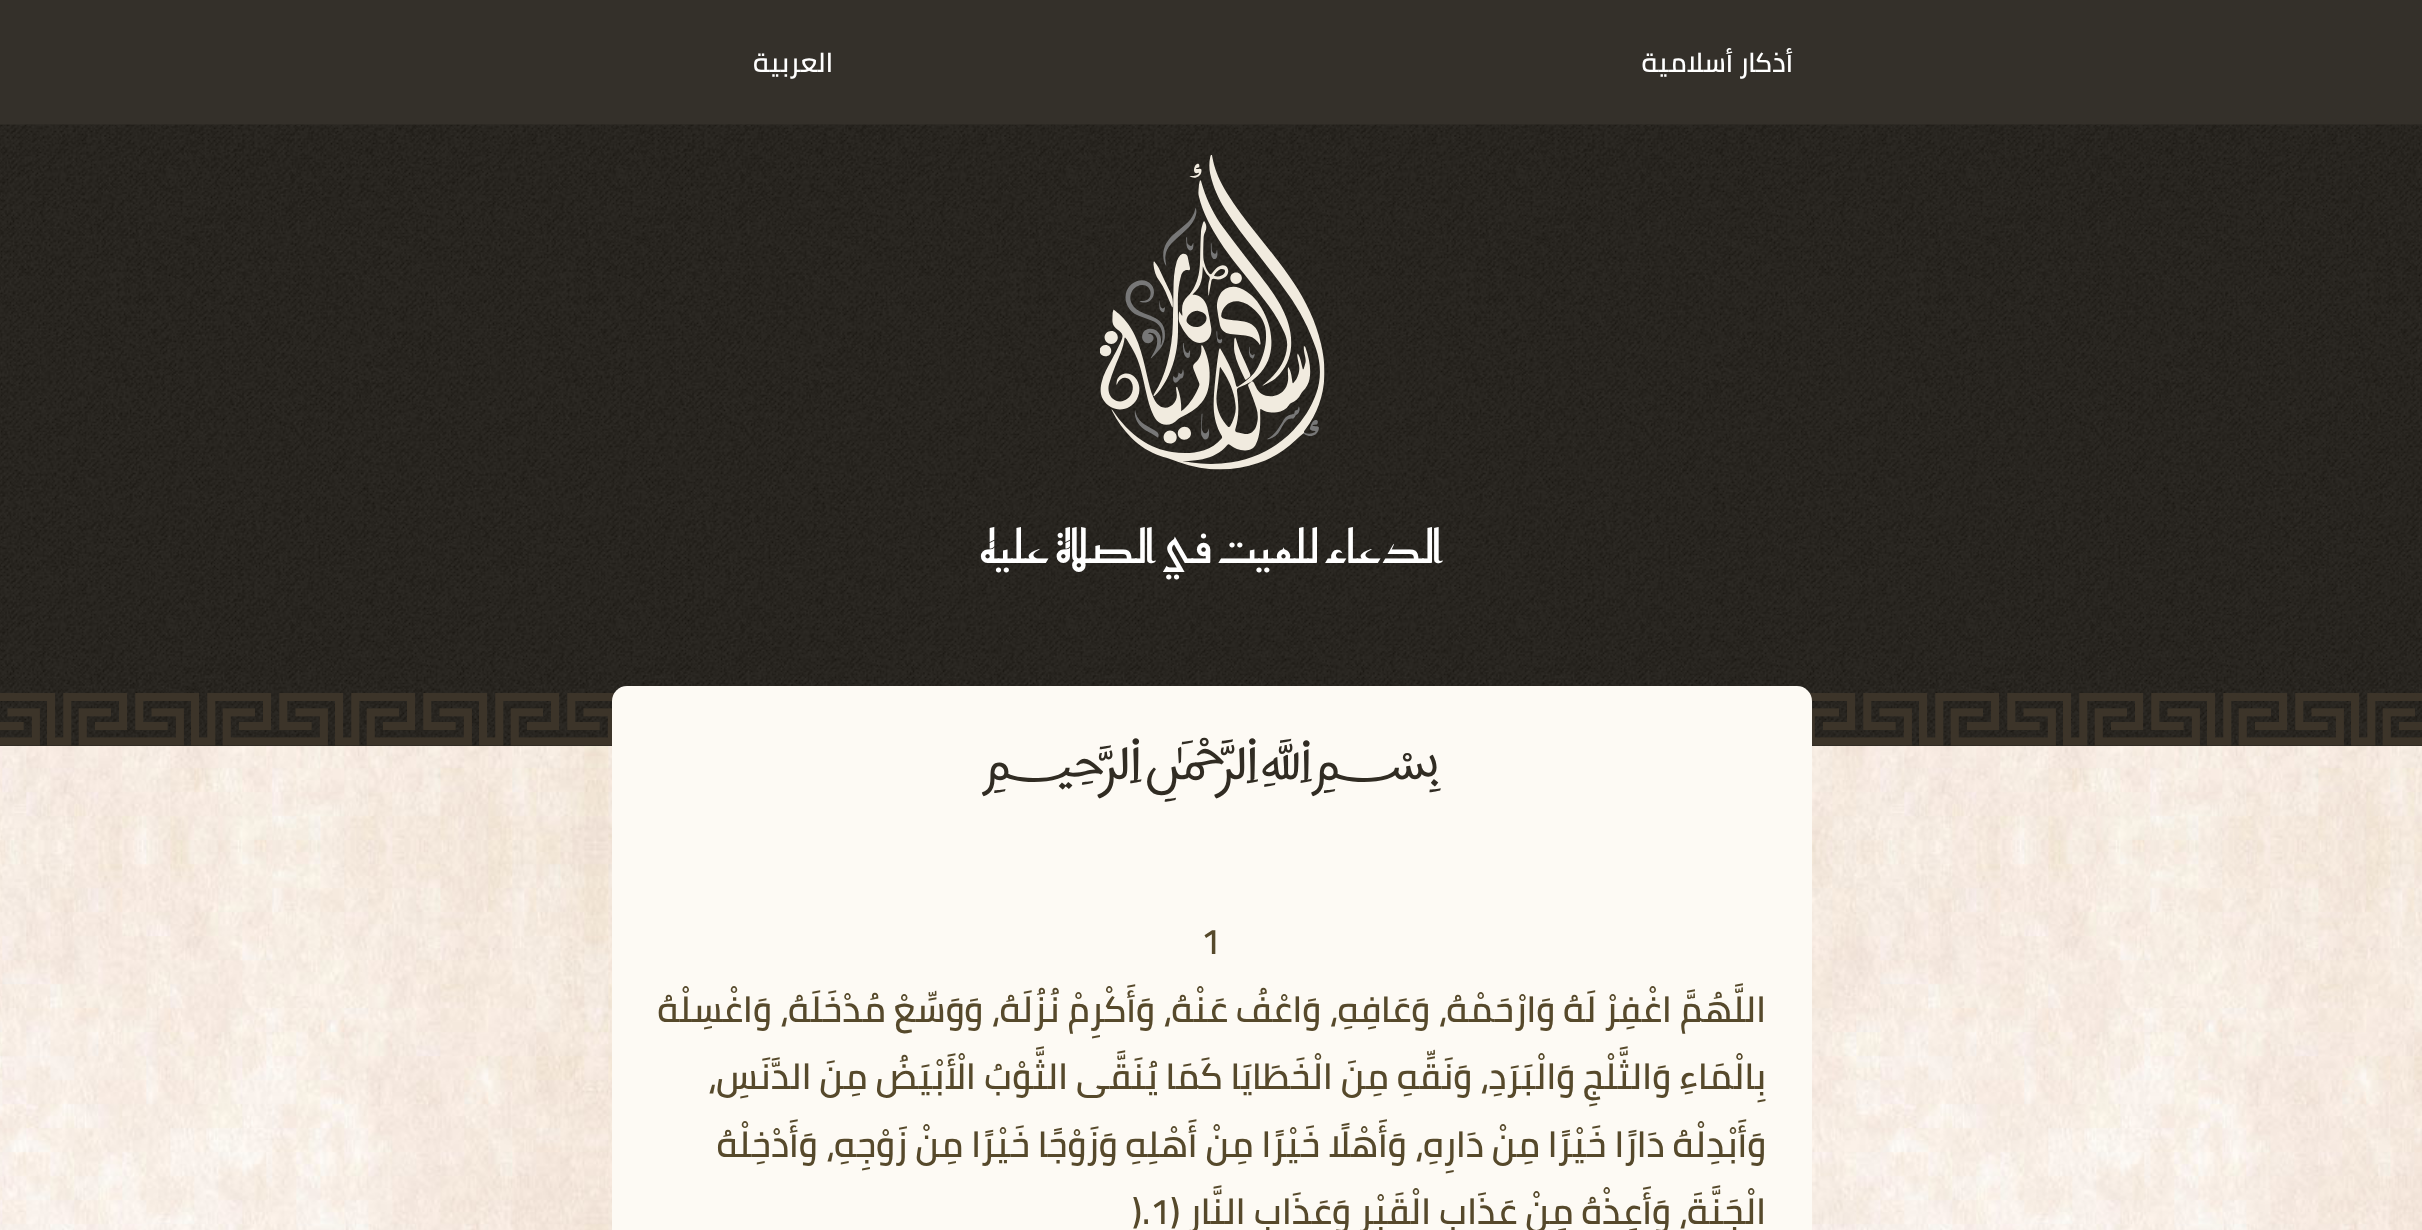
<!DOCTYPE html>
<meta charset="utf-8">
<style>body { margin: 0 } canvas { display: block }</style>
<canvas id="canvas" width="2422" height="1230"></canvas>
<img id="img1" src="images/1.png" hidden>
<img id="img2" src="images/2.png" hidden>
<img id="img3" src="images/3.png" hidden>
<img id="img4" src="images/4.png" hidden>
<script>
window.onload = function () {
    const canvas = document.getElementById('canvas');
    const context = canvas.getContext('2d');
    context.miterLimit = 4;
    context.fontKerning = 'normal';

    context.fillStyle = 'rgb(255, 255, 255)';
    context.fillRect(0, 0, 2422, 1230);
    context.drawImage(document.getElementById('img1'), 0, 746, 2422, 484);
    context.fillStyle = 'rgb(52, 48, 42)';
    context.fillRect(0, 0, 2422, 125);
    context.fillStyle = 'rgb(43, 40, 35)';
    context.fillRect(0, 745, 2422, 1);
    context.drawImage(document.getElementById('img2'), 0, 124, 2422, 622);
    context.drawImage(document.getElementById('img3'), 1100, 155, 225, 315);
    context.drawImage(document.getElementById('img4'), 0, 693, 2422, 53);
    context.fillStyle = 'rgb(253, 250, 244)';
    context.beginPath();
    context.roundRect(612, 686, 1200, 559, 15);
    context.fill();
    context.direction = 'rtl';
    context.font = '600 27px Cairo';
    context.fillStyle = 'rgb(255, 255, 255)';
    context.fillText('أذكار أسلامية', 1793, 72);
    context.fillText('العربية', 833, 72);
    context.font = '45px Reem Kufi';
    context.fillText('الدعاء للميت في الصلاة عليه', 1443, 563);
    context.direction = 'ltr';
    context.font = '60px Harmattan';
    context.fillStyle = 'rgb(49, 44, 35)';
    context.fillText('﷽', 981, 779);
    context.font = '600 36px Cairo';
    context.fillStyle = 'rgb(86, 73, 43)';
    context.fillText('1', 1201, 954);
    context.direction = 'rtl';
    context.fillText('اللَّهُمَّ اغْفِرْ لَهُ وَارْحَمْهُ، وَعَافِهِ، وَاعْفُ عَنْهُ، وَأَكْرِمْ نُزُلَهُ، وَوَسِّعْ مُدْخَلَهُ، وَاغْسِلْهُ', 1766, 1022);
    context.fillText('بِالْمَاءِ وَالثَّلْجِ وَالْبَرَدِ، وَنَقِّهِ مِنَ الْخَطَايَا كَمَا يُنَقَّى الثَّوْبُ الْأَبْيَضُ مِنَ الدَّنَسِ،', 1766, 1089);
    context.fillText('وَأَبْدِلْهُ دَارًا خَيْرًا مِنْ دَارِهِ، وَأَهْلًا خَيْرًا مِنْ أَهْلِهِ وَزَوْجًا خَيْرًا مِنْ زَوْجِهِ، وَأَدْخِلْهُ', 1766, 1157);
    context.fillText('الْجَنَّةَ، وَأَعِذْهُ مِنْ عَذَابِ الْقَبْرِ وَعَذَابِ النَّارِ (', 1766, 1224);
    context.direction = 'ltr';
    context.fillText(').1', 1132, 1224);
};
</script>
